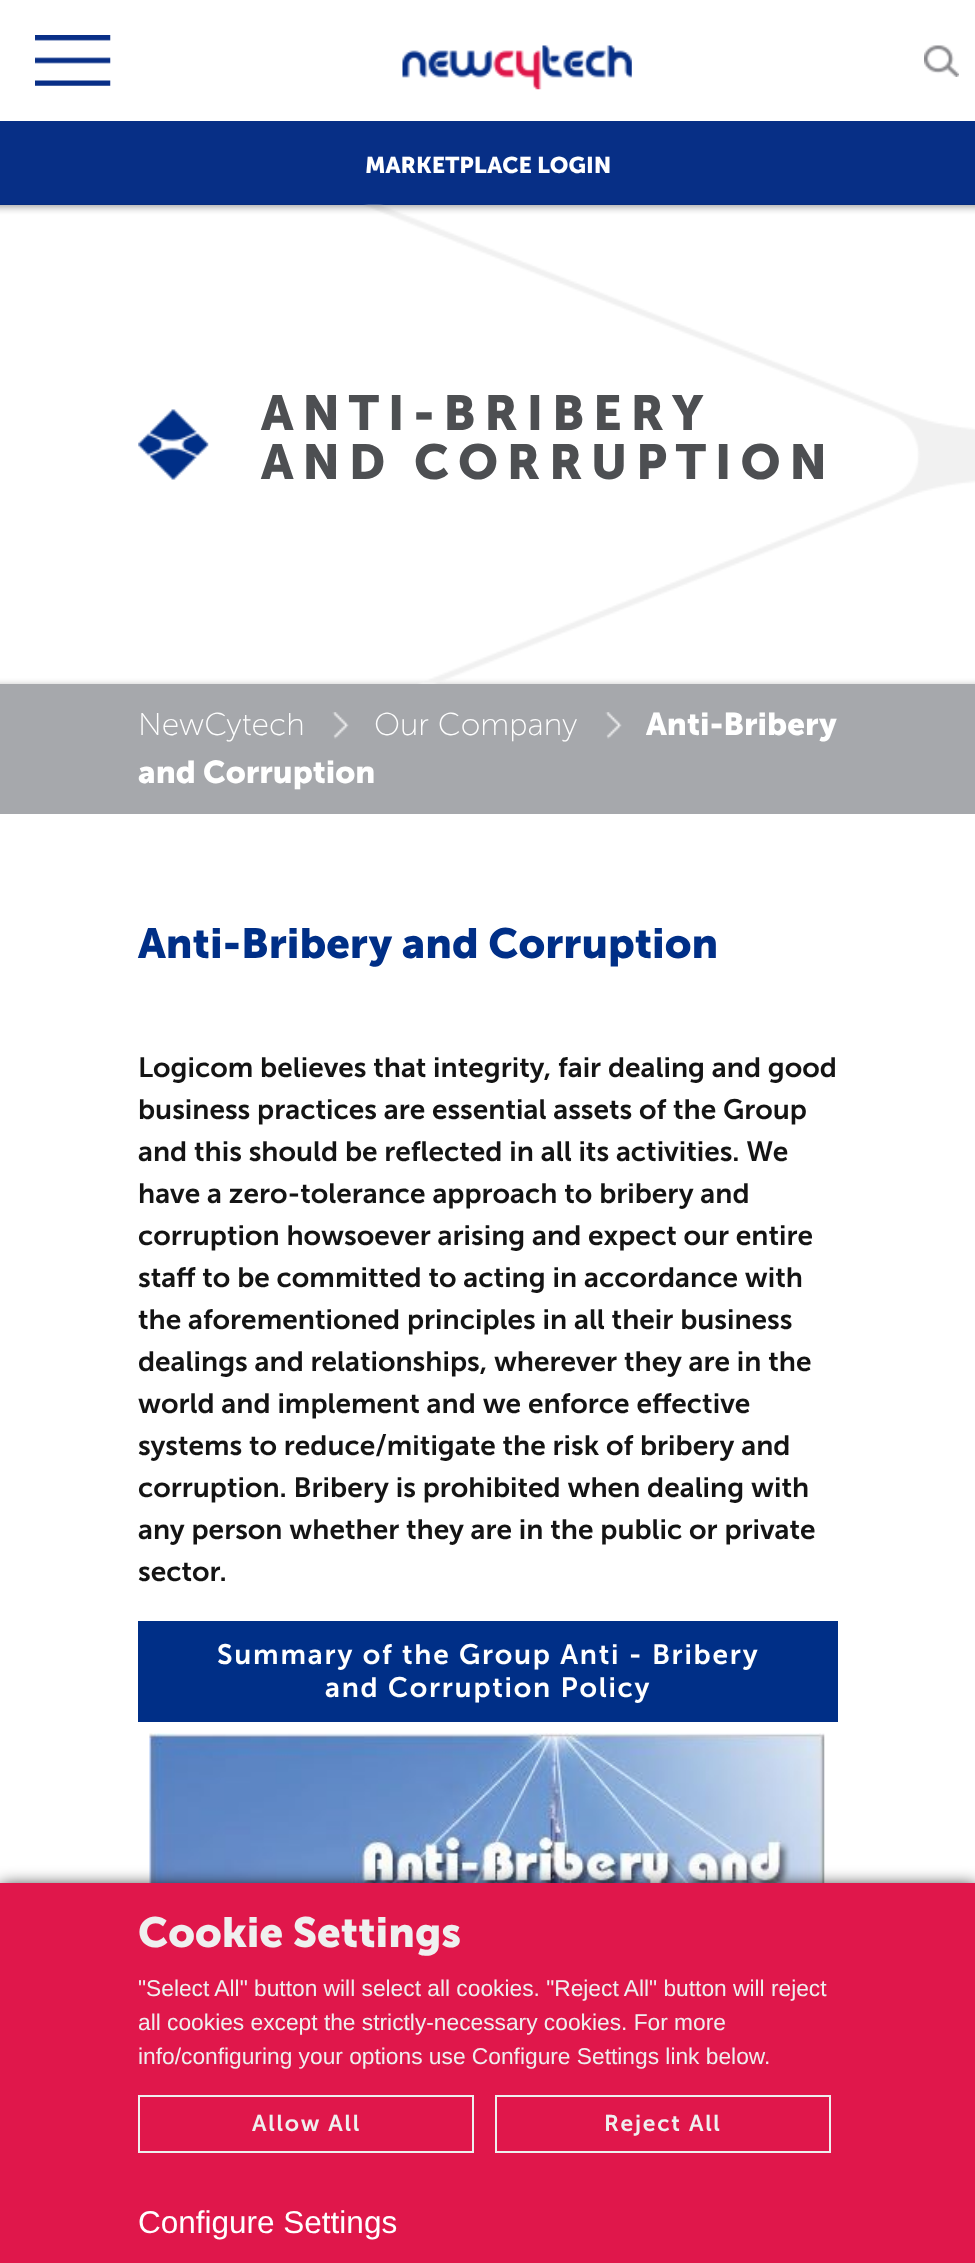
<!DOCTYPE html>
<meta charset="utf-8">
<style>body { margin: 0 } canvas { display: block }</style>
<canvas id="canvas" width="975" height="2263"></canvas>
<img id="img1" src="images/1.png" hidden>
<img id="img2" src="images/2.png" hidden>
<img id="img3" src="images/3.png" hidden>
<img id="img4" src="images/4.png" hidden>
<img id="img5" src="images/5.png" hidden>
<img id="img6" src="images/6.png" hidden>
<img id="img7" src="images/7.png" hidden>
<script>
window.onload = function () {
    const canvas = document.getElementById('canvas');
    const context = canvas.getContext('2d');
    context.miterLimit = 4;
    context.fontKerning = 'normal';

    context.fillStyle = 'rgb(255, 255, 255)';
    context.fillRect(0, 0, 975, 2263);
    context.drawImage(document.getElementById('img1'), 35, 35, 76, 51);
    context.drawImage(document.getElementById('img2'), 402, 45, 230, 45);
    context.drawImage(document.getElementById('img3'), 924, 45, 35, 32);
    context.fillStyle = 'rgb(7, 47, 134)';
    context.fillRect(0, 121, 975, 84);
    context.drawImage(document.getElementById('img4'), 0, 204, 975, 480);
    context.drawImage(document.getElementById('img5'), 138, 409, 71, 71);
    context.fillStyle = 'rgb(166, 168, 172)';
    context.fillRect(0, 684, 975, 130);
    context.drawImage(document.getElementById('img6'), 332, 712, 17, 27);
    context.drawImage(document.getElementById('img6'), 605, 712, 17, 27);
    context.fillStyle = 'rgb(0, 47, 135)';
    context.fillRect(138, 1621, 700, 101);
    context.drawImage(document.getElementById('img7'), 149, 1733, 676, 150);
    context.fillStyle = 'rgb(0, 0, 0)';
    context.filter = 'blur(9px)';
    context.beginPath();
    context.rect(0, 1887, 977, 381);
    context.fill();
    context.filter = 'none';
    context.fillStyle = 'rgb(224, 23, 75)';
    context.fillRect(0, 1883, 975, 380);
    context.strokeStyle = 'rgb(239, 239, 239)';
    context.lineWidth = 2;
    context.strokeRect(139, 2096, 334, 56);
    context.strokeRect(496, 2096, 334, 56);
    context.font = 'bold 22.75px Museo Sans';
    context.fillStyle = 'rgb(255, 255, 255)';
    context.fillText('MARKETPLACE LOGIN', 365, 173);
    context.letterSpacing = '8.75px';
    context.font = 'bold 49px Museo Sans';
    context.fillStyle = 'rgb(77, 79, 82)';
    context.fillText('ANTI-BRIBERY', 261, 430);
    context.fillText('AND CORRUPTION', 261, 479);
    context.letterSpacing = '0px';
    context.font = '200 31.5px Museo Sans';
    context.fillStyle = 'rgb(255, 255, 255)';
    context.fillText('NewCytech', 138, 735);
    context.fillText('Our Company', 374, 735);
    context.font = 'bold 31.5px Museo Sans';
    context.fillText('Anti-Bribery', 646, 735);
    context.fillText('and Corruption', 138, 783);
    context.font = 'bold 42px Museo Sans';
    context.fillStyle = 'rgb(0, 47, 135)';
    context.fillText('Anti-Bribery and Corruption', 138, 958);
    context.font = '600 28px Museo Sans';
    context.fillStyle = 'rgb(20, 20, 20)';
    context.fillText('Logicom believes that integrity, fair dealing and good', 138, 1077);
    context.fillText('business practices are essential assets of the Group', 138, 1119);
    context.fillText('and this should be reflected in all its activities. We', 138, 1161);
    context.fillText('have a zero-tolerance approach to bribery and', 138, 1203);
    context.fillText('corruption howsoever arising and expect our entire', 138, 1245);
    context.fillText('staff to be committed to acting in accordance with', 138, 1287);
    context.fillText('the aforementioned principles in all their business', 138, 1329);
    context.fillText('dealings and relationships, wherever they are in the', 138, 1371);
    context.fillText('world and implement and we enforce effective', 138, 1413);
    context.fillText('systems to reduce/mitigate the risk of bribery and', 138, 1455);
    context.fillText('corruption. Bribery is prohibited when dealing with', 138, 1497);
    context.fillText('any person whether they are in the public or private', 138, 1539);
    context.fillText('sector.', 138, 1581);
    context.letterSpacing = '1.75px';
    context.fillStyle = 'rgb(255, 255, 255)';
    context.fillText('Summary of the Group Anti - Bribery', 217, 1664);
    context.fillText('and Corruption Policy', 325, 1697);
    context.letterSpacing = '0px';
    context.font = 'bold 42px Museo Sans';
    context.fillStyle = 'rgb(239, 239, 239)';
    context.fillText('Cookie Settings', 138, 1947);
    context.font = '22.75px Liberation Sans';
    context.fillText('"Select All" button will select all cookies. "Reject All" button will reject', 138, 1996);
    context.fillText('all cookies except the strictly-necessary cookies. For more', 138, 2030);
    context.fillText('info/configuring your options use Configure Settings link below.', 138, 2064);
    context.letterSpacing = '1.75px';
    context.font = '600 22.75px Museo Sans';
    context.fillText('Allow All', 252, 2131);
    context.fillText('Reject All', 604, 2131);
    context.letterSpacing = '0px';
    context.font = '31.5px Liberation Sans';
    context.fillStyle = 'rgb(255, 255, 255)';
    context.fillText('Configure Settings', 138, 2233);
};
</script>
